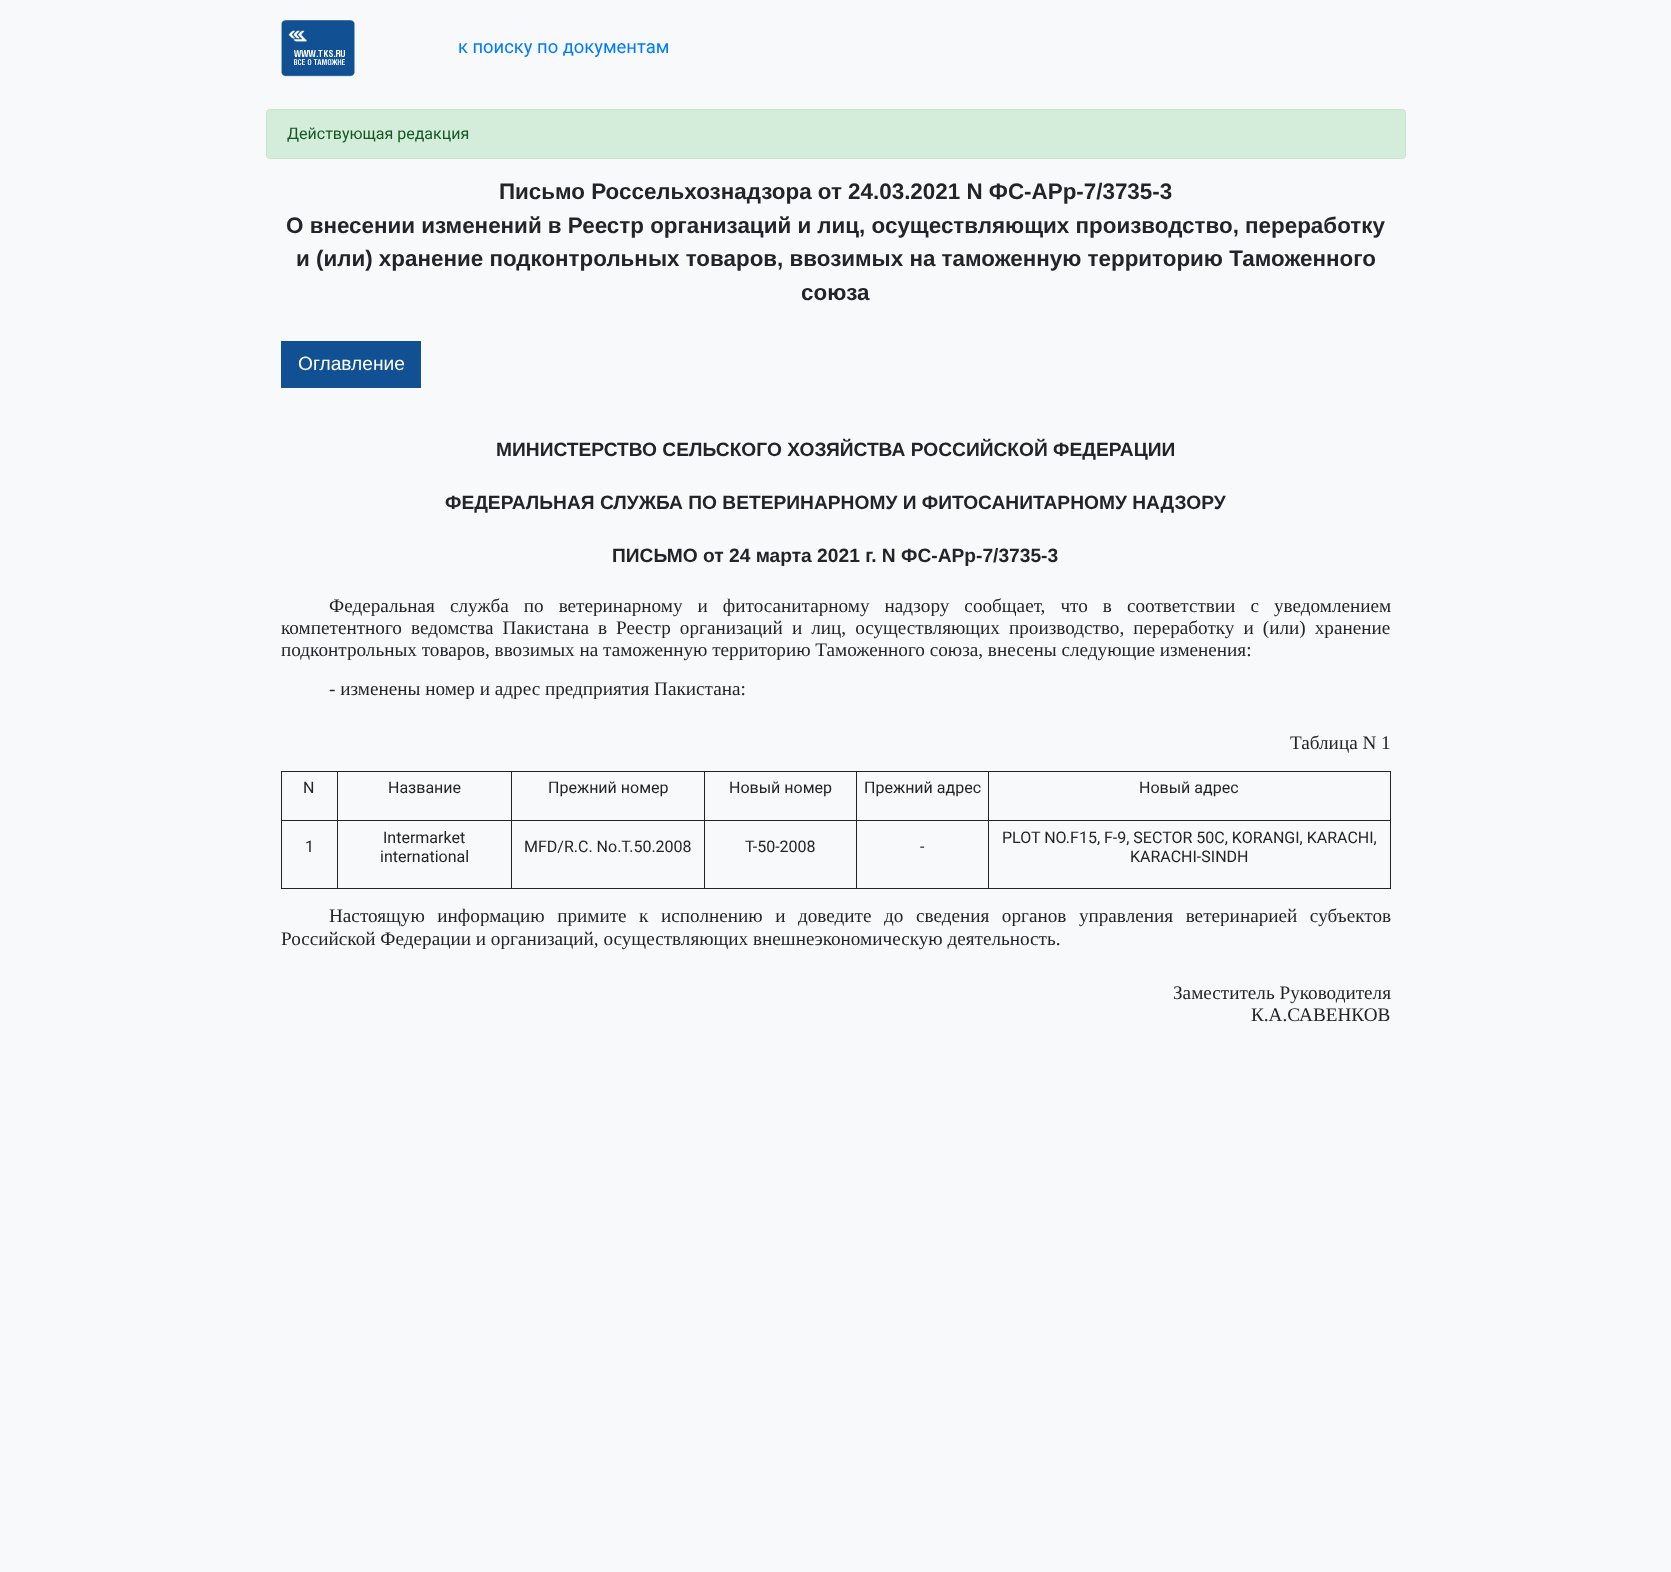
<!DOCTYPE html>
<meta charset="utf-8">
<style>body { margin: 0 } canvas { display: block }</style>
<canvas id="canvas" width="1671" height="1572"></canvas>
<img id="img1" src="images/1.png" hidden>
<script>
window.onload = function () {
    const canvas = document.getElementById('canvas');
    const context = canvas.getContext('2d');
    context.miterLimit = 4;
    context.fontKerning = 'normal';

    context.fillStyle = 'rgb(248, 249, 250)';
    context.fillRect(0, 0, 1671, 1572);
    context.drawImage(document.getElementById('img1'), 281, 20, 74, 57);
    context.fillStyle = 'rgb(212, 237, 218)';
    context.beginPath();
    context.roundRect(266.5, 109.5, 1139, 49, 3.5);
    context.fill();
    context.strokeStyle = 'rgb(195, 230, 203)';
    context.stroke();
    context.fillStyle = 'rgb(17, 81, 147)';
    context.fillRect(281, 341, 140, 47);
    context.fillStyle = 'rgb(33, 37, 41)';
    context.fillRect(988, 771, 403, 1);
    context.fillRect(988, 820, 403, 1);
    context.fillRect(1390, 820, 1, 69);
    context.fillRect(988, 888, 403, 1);
    context.fillRect(988, 820, 1, 69);
    context.fillRect(856, 820, 133, 1);
    context.fillRect(988, 771, 1, 50);
    context.fillRect(856, 771, 133, 1);
    context.fillRect(856, 888, 133, 1);
    context.fillRect(856, 820, 1, 69);
    context.fillRect(704, 820, 153, 1);
    context.fillRect(856, 771, 1, 50);
    context.fillRect(704, 771, 153, 1);
    context.fillRect(704, 888, 153, 1);
    context.fillRect(704, 820, 1, 69);
    context.fillRect(511, 820, 194, 1);
    context.fillRect(704, 771, 1, 50);
    context.fillRect(511, 771, 194, 1);
    context.fillRect(511, 888, 194, 1);
    context.fillRect(511, 820, 1, 69);
    context.fillRect(337, 820, 175, 1);
    context.fillRect(511, 771, 1, 50);
    context.fillRect(337, 771, 175, 1);
    context.fillRect(337, 888, 175, 1);
    context.fillRect(337, 820, 1, 69);
    context.fillRect(281, 820, 57, 1);
    context.fillRect(337, 771, 1, 50);
    context.fillRect(281, 771, 57, 1);
    context.fillRect(281, 888, 57, 1);
    context.fillRect(281, 820, 1, 69);
    context.fillRect(281, 771, 1, 50);
    context.fillRect(1390, 771, 1, 50);
    context.font = '18.4px Roboto';
    context.fillStyle = 'rgb(0, 123, 255)';
    context.fillText('к поиску по документам', 458, 53);
    context.font = '16px Roboto';
    context.fillStyle = 'rgb(21, 87, 36)';
    context.fillText('Действующая редакция', 287, 139);
    context.font = 'bold 22.4px Liberation Sans';
    context.fillStyle = 'rgb(33, 37, 41)';
    context.fillText('Письмо Россельхознадзора от 24.03.2021 N ФС-АРр-7/3735-3', 499, 199);
    context.fillText('О внесении изменений в Реестр организаций и лиц, осуществляющих производство, переработку', 286, 233);
    context.fillText('и (или) хранение подконтрольных товаров, ввозимых на таможенную территорию Таможенного', 296, 266);
    context.fillText('союза', 801, 300);
    context.font = '19.2px Liberation Sans';
    context.fillStyle = 'rgb(255, 255, 255)';
    context.fillText('Оглавление', 298, 370);
    context.font = 'bold 19.2px Liberation Sans';
    context.fillStyle = 'rgb(33, 37, 41)';
    context.fillText('МИНИСТЕРСТВО СЕЛЬСКОГО ХОЗЯЙСТВА РОССИЙСКОЙ ФЕДЕРАЦИИ', 496, 456);
    context.fillText('ФЕДЕРАЛЬНАЯ СЛУЖБА ПО ВЕТЕРИНАРНОМУ И ФИТОСАНИТАРНОМУ НАДЗОРУ', 445, 509);
    context.fillText('ПИСЬМО от 24 марта 2021 г. N ФС-АРр-7/3735-3', 612, 562);
    context.wordSpacing = '10.25px';
    context.font = '19.2px Liberation Serif';
    context.fillText('Федеральная служба по ветеринарному и фитосанитарному надзору сообщает, что в соответствии с уведомлением', 329, 612);
    context.wordSpacing = '4.25px';
    context.fillText('компетентного ведомства Пакистана в Реестр организаций и лиц, осуществляющих производство, переработку и (или) хранение', 281, 634);
    context.wordSpacing = '0px';
    context.fillText('подконтрольных товаров, ввозимых на таможенную территорию Таможенного союза, внесены следующие изменения:', 281, 656);
    context.fillText('- изменены номер и адрес предприятия Пакистана:', 329, 695);
    context.fillText('Таблица N 1', 1290, 749);
    context.font = '16px Roboto';
    context.fillText('N', 303, 793);
    context.fillText('Название', 388, 793);
    context.fillText('Прежний номер', 548, 793);
    context.fillText('Новый номер', 729, 793);
    context.fillText('Прежний адрес', 864, 793);
    context.fillText('Новый адрес', 1139, 793);
    context.fillText('1', 305, 852);
    context.fillText('Intermarket', 383, 843);
    context.fillText('international', 380, 862);
    context.fillText('MFD/R.C. No.T.50.2008', 524, 852);
    context.fillText('T-50-2008', 745, 852);
    context.fillText('-', 920, 852);
    context.fillText('PLOT NO.F15, F-9, SECTOR 50C, KORANGI, KARACHI,', 1002, 843);
    context.fillText('KARACHI-SINDH', 1130, 862);
    context.wordSpacing = '7.75px';
    context.font = '19.2px Liberation Serif';
    context.fillText('Настоящую информацию примите к исполнению и доведите до сведения органов управления ветеринарией субъектов', 329, 922);
    context.wordSpacing = '0px';
    context.fillText('Российской Федерации и организаций, осуществляющих внешнеэкономическую деятельность.', 281, 945);
    context.fillText('Заместитель Руководителя', 1173, 999);
    context.fillText('К.А.САВЕНКОВ', 1251, 1021);
};
</script>
